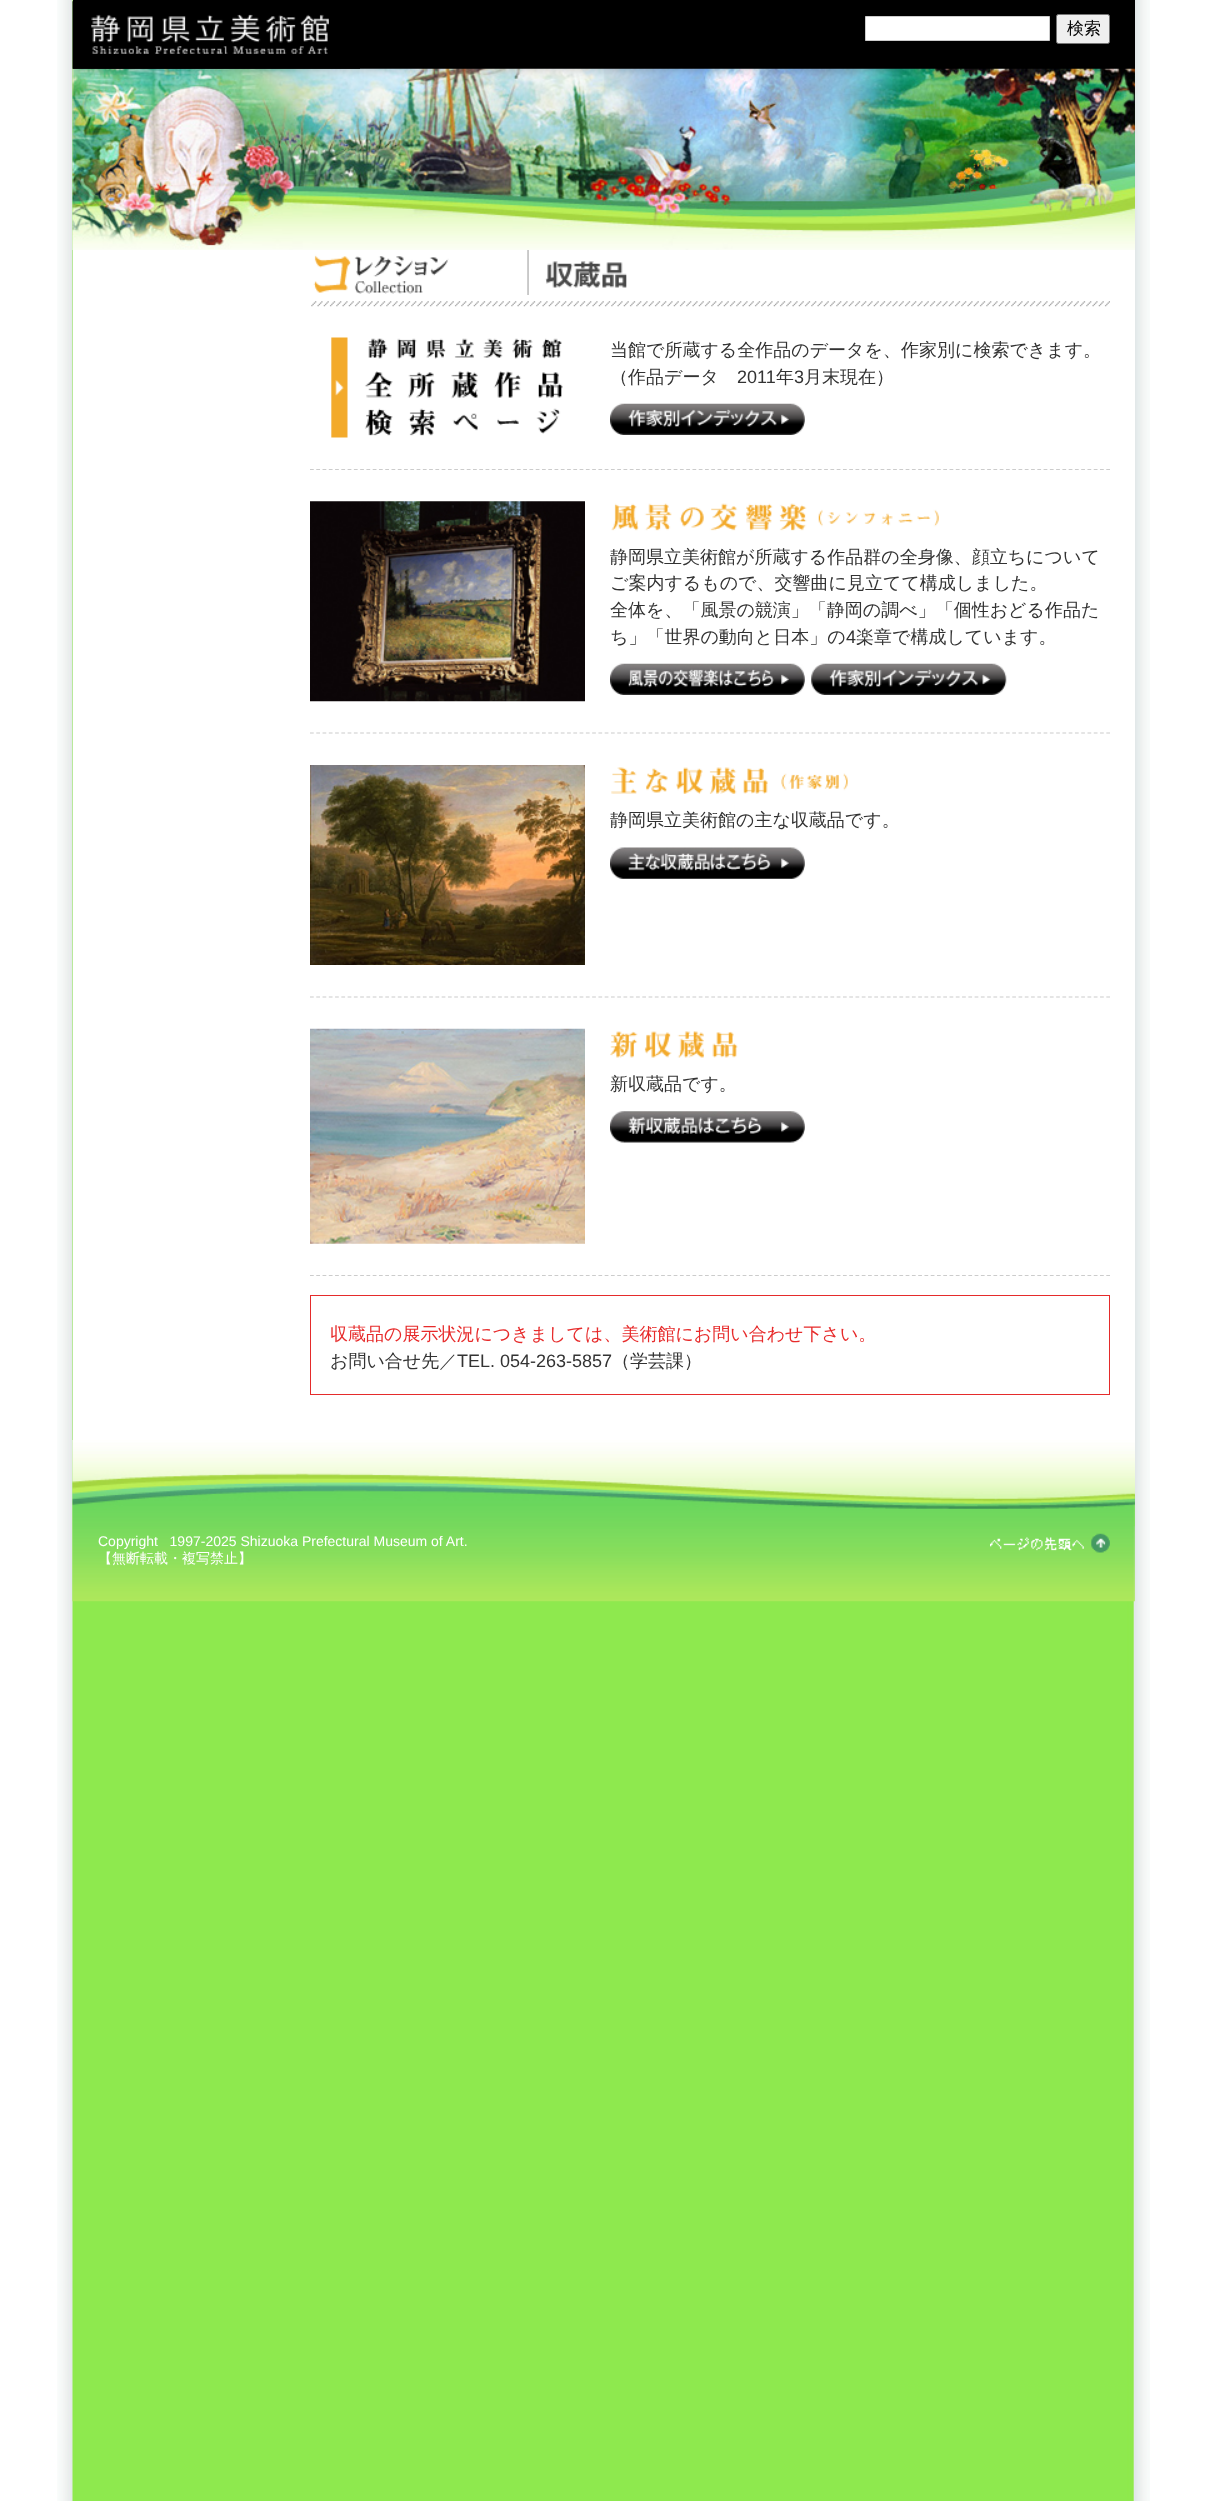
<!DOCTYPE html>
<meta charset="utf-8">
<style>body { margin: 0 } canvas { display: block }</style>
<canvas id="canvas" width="1207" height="2501"></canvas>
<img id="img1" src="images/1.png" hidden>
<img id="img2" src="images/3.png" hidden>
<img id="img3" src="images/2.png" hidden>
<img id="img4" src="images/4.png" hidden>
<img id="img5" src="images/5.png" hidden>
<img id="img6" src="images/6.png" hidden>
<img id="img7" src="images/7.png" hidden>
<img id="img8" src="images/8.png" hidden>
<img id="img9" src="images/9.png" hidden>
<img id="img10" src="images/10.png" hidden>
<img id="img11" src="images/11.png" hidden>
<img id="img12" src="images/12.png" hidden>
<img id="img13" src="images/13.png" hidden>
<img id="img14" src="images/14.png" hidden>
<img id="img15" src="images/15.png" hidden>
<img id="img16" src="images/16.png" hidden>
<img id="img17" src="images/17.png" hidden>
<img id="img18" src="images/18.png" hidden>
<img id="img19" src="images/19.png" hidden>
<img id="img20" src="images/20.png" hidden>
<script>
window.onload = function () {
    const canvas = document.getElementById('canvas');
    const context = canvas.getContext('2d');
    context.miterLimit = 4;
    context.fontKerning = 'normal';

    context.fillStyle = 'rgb(255, 255, 255)';
    context.fillRect(0, 0, 1207, 2501);
    context.drawImage(document.getElementById('img1'), 57, 0, 1093, 2501);
    context.fillRect(73, 250, 1062, 1190);
    context.fillStyle = 'rgb(0, 0, 0)';
    context.fillRect(73, 0, 1062, 69);
    context.drawImage(document.getElementById('img2'), 72, 68, 1063, 182);
    context.drawImage(document.getElementById('img3'), 72, 1, 288, 68);
    context.fillStyle = 'rgb(255, 255, 255)';
    context.beginPath();
    context.rect(865.5, 16.5, 184, 24);
    context.fill();
    context.strokeStyle = 'rgb(204, 204, 204)';
    context.stroke();
    context.fillStyle = 'rgb(239, 239, 239)';
    context.beginPath();
    context.roundRect(1056.5, 14.5, 53, 29, 2);
    context.fill();
    context.strokeStyle = 'rgb(118, 118, 118)';
    context.stroke();
    context.drawImage(document.getElementById('img4'), 313, 250, 216, 45);
    context.drawImage(document.getElementById('img5'), 528, 250, 99, 45);
    context.drawImage(document.getElementById('img6'), 311, 301, 799, 6);
    context.beginPath();
    context.moveTo(310, 469.5);
    context.lineTo(1110, 469.5);
    context.strokeStyle = 'rgb(204, 204, 204)';
    context.lineWidth = 1.2;
    context.setLineDash([3.75, 2.52]);
    context.stroke();
    context.drawImage(document.getElementById('img7'), 331, 337, 232, 101);
    context.drawImage(document.getElementById('img8'), 610, 403, 195, 32);
    context.beginPath();
    context.moveTo(310, 733);
    context.lineTo(1110, 733);
    context.stroke();
    context.drawImage(document.getElementById('img9'), 310, 501, 275, 201);
    context.drawImage(document.getElementById('img10'), 611, 503, 328, 28);
    context.drawImage(document.getElementById('img11'), 610, 663, 195, 32);
    context.drawImage(document.getElementById('img12'), 811, 663, 196, 32);
    context.beginPath();
    context.moveTo(310, 997);
    context.lineTo(1110, 997);
    context.stroke();
    context.drawImage(document.getElementById('img13'), 310, 765, 275, 200);
    context.drawImage(document.getElementById('img14'), 611, 767, 237, 27);
    context.drawImage(document.getElementById('img15'), 610, 847, 195, 32);
    context.beginPath();
    context.moveTo(310, 1275.5);
    context.lineTo(1110, 1275.5);
    context.stroke();
    context.drawImage(document.getElementById('img16'), 310, 1028, 275, 216);
    context.drawImage(document.getElementById('img17'), 610, 1031, 128, 27);
    context.drawImage(document.getElementById('img18'), 610, 1111, 195, 32);
    context.strokeStyle = 'rgb(229, 43, 43)';
    context.lineWidth = 1;
    context.setLineDash([]);
    context.strokeRect(310.5, 1295.5, 799, 99);
    context.drawImage(document.getElementById('img19'), 72, 1440, 1063, 162);
    context.drawImage(document.getElementById('img20'), 990, 1533, 120, 20);
    context.font = '500 17px WenQuanYi Zen Hei';
    context.fillStyle = 'rgb(0, 0, 0)';
    context.fillText('検索', 1067, 34);
    context.font = '500 18px WenQuanYi Zen Hei';
    context.fillStyle = 'rgb(51, 51, 51)';
    context.fillText('当館で所蔵する全作品のデータを、作家別に検索できます。', 610, 356);
    context.fillText('（作品データ', 610, 383);
    context.font = '18px Liberation Sans';
    context.fillText('2011', 737, 383);
    context.font = '500 18px WenQuanYi Zen Hei';
    context.fillText('年', 776, 383);
    context.font = '18px Liberation Sans';
    context.fillText('3', 794, 383);
    context.font = '500 18px WenQuanYi Zen Hei';
    context.fillText('月末現在）', 804, 383);
    context.fillText('静岡県立美術館が所蔵する作品群の全身像、顔立ちについて', 610, 563);
    context.fillText('ご案内するもので、交響曲に見立てて構成しました。', 610, 589);
    context.fillText('全体を、「風景の競演」「静岡の調べ」「個性おどる作品た', 610, 616);
    context.fillText('ち」「世界の動向と日本」の', 610, 643);
    context.font = '18px Liberation Sans';
    context.fillText('4', 846, 643);
    context.font = '500 18px WenQuanYi Zen Hei';
    context.fillText('楽章で構成しています。', 856, 643);
    context.fillText('静岡県立美術館の主な収蔵品です。', 610, 826);
    context.fillText('新収蔵品です。', 610, 1090);
    context.fillStyle = 'rgb(231, 43, 43)';
    context.fillText('収蔵品の展示状況につきましては、美術館にお問い合わせ下さい。', 330, 1340);
    context.fillStyle = 'rgb(51, 51, 51)';
    context.fillText('お問い合せ先／', 330, 1367);
    context.font = '18px Liberation Sans';
    context.fillText('TEL. 054-263-5857', 457, 1367);
    context.font = '500 18px WenQuanYi Zen Hei';
    context.fillText('（学芸課）', 612, 1367);
    context.font = '14px Liberation Sans';
    context.fillStyle = 'rgb(255, 255, 255)';
    context.fillText('Copyright   1997-2025 Shizuoka Prefectural Museum of Art.', 98, 1546);
    context.font = '500 14px WenQuanYi Zen Hei';
    context.fillText('【無断転載・複写禁止】', 98, 1563);
};
</script>
